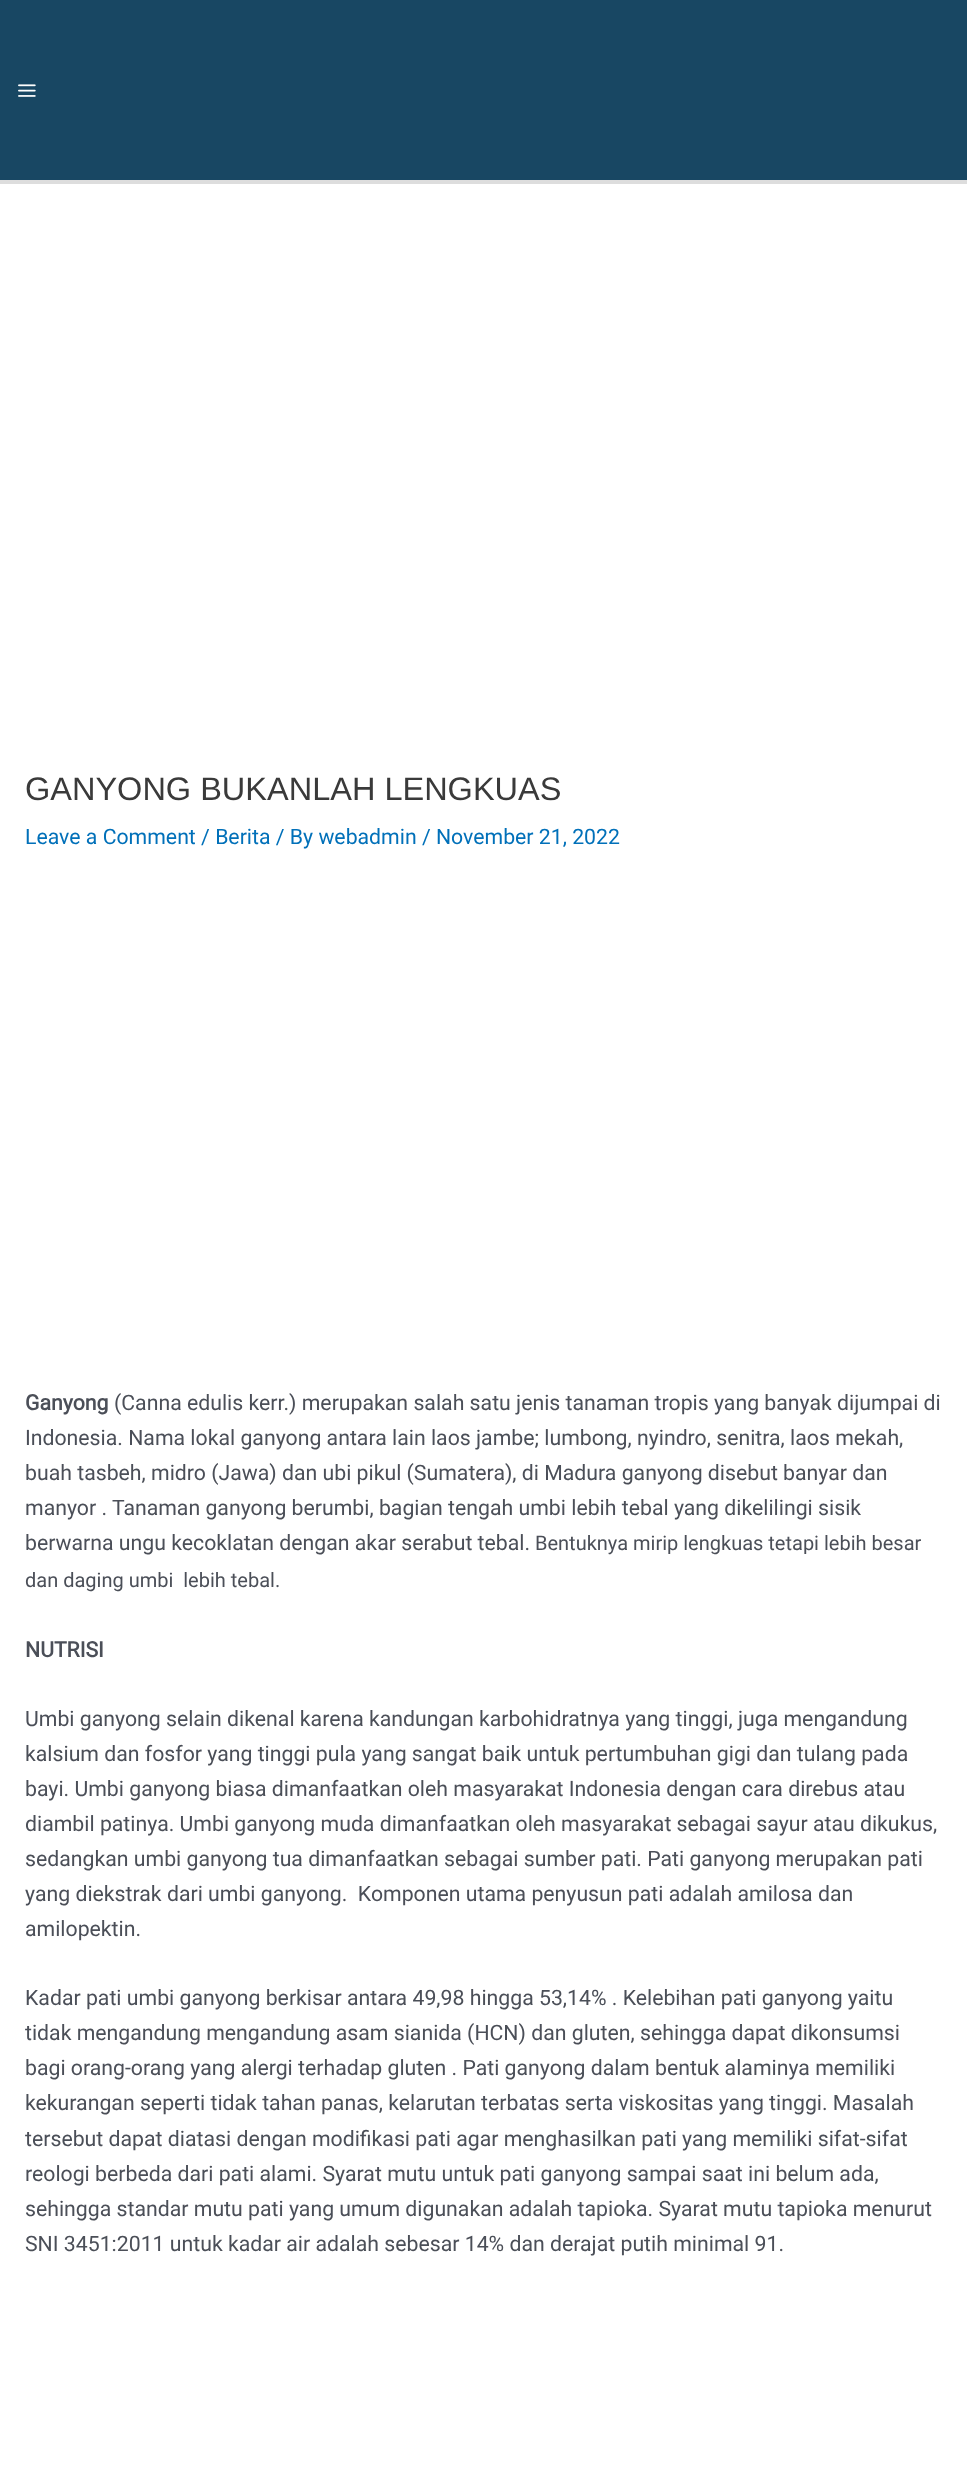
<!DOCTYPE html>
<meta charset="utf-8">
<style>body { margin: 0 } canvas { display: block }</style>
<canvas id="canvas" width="967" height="2482"></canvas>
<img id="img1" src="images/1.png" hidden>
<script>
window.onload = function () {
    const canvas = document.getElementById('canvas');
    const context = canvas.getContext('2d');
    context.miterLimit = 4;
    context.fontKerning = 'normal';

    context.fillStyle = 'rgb(255, 255, 255)';
    context.fillRect(0, 0, 967, 2482);
    context.fillStyle = 'rgb(24, 71, 99)';
    context.fillRect(0, 0, 967, 180);
    context.fillStyle = 'rgb(221, 221, 221)';
    context.fillRect(0, 180, 967, 4);
    context.drawImage(document.getElementById('img1'), 18, 84, 18, 13);
    context.font = '32.5px Liberation Sans';
    context.fillStyle = 'rgb(58, 58, 58)';
    context.fillText('GANYONG BUKANLAH LENGKUAS', 25, 800);
    context.font = '21.25px Roboto';
    context.fillStyle = 'rgb(1, 112, 185)';
    context.fillText('Leave a Comment / Berita / By webadmin / November 21, 2022', 25, 844);
    context.font = 'bold 21.25px Roboto';
    context.fillStyle = 'rgb(75, 79, 88)';
    context.fillText('Ganyong', 25, 1410);
    context.font = '21.25px Roboto';
    context.fillText('(Canna edulis kerr.) merupakan salah satu jenis tanaman tropis yang banyak dijumpai di', 114, 1410);
    context.fillText('Indonesia. Nama lokal ganyong antara lain laos jambe; lumbong, nyindro, senitra, laos mekah,', 25, 1445);
    context.fillText('buah tasbeh, midro (Jawa) dan ubi pikul (Sumatera), di Madura ganyong disebut banyar dan', 25, 1480);
    context.fillText('manyor . Tanaman ganyong berumbi, bagian tengah umbi lebih tebal yang dikelilingi sisik', 25, 1515);
    context.fillText('berwarna ungu kecoklatan dengan akar serabut tebal.', 25, 1550);
    context.font = '20px Roboto';
    context.fillText('Bentuknya mirip lengkuas tetapi lebih besar', 535, 1550);
    context.fillText('dan daging umbi  lebih tebal.', 25, 1587);
    context.font = 'bold 21.25px Roboto';
    context.fillText('NUTRISI', 25, 1657);
    context.font = '21.25px Roboto';
    context.fillText('Umbi ganyong selain dikenal karena kandungan karbohidratnya yang tinggi, juga mengandung', 25, 1726);
    context.fillText('kalsium dan fosfor yang tinggi pula yang sangat baik untuk pertumbuhan gigi dan tulang pada', 25, 1761);
    context.fillText('bayi. Umbi ganyong biasa dimanfaatkan oleh masyarakat Indonesia dengan cara direbus atau', 25, 1796);
    context.fillText('diambil patinya. Umbi ganyong muda dimanfaatkan oleh masyarakat sebagai sayur atau dikukus,', 25, 1831);
    context.fillText('sedangkan umbi ganyong tua dimanfaatkan sebagai sumber pati. Pati ganyong merupakan pati', 25, 1866);
    context.fillText('yang diekstrak dari umbi ganyong.  Komponen utama penyusun pati adalah amilosa dan', 25, 1901);
    context.fillText('amilopektin.', 25, 1936);
    context.fillText('Kadar pati umbi ganyong berkisar antara 49,98 hingga 53,14% . Kelebihan pati ganyong yaitu', 25, 2005);
    context.fillText('tidak mengandung mengandung asam sianida (HCN) dan gluten, sehingga dapat dikonsumsi', 25, 2040);
    context.fillText('bagi orang-orang yang alergi terhadap gluten . Pati ganyong dalam bentuk alaminya memiliki', 25, 2075);
    context.fillText('kekurangan seperti tidak tahan panas, kelarutan terbatas serta viskositas yang tinggi. Masalah', 25, 2110);
    context.fillText('tersebut dapat diatasi dengan modifikasi pati agar menghasilkan pati yang memiliki sifat-sifat', 25, 2146);
    context.fillText('reologi berbeda dari pati alami. Syarat mutu untuk pati ganyong sampai saat ini belum ada,', 25, 2181);
    context.fillText('sehingga standar mutu pati yang umum digunakan adalah tapioka. Syarat mutu tapioka menurut', 25, 2216);
    context.fillText('SNI 3451:2011 untuk kadar air adalah sebesar 14% dan derajat putih minimal 91.', 25, 2251);
};
</script>
